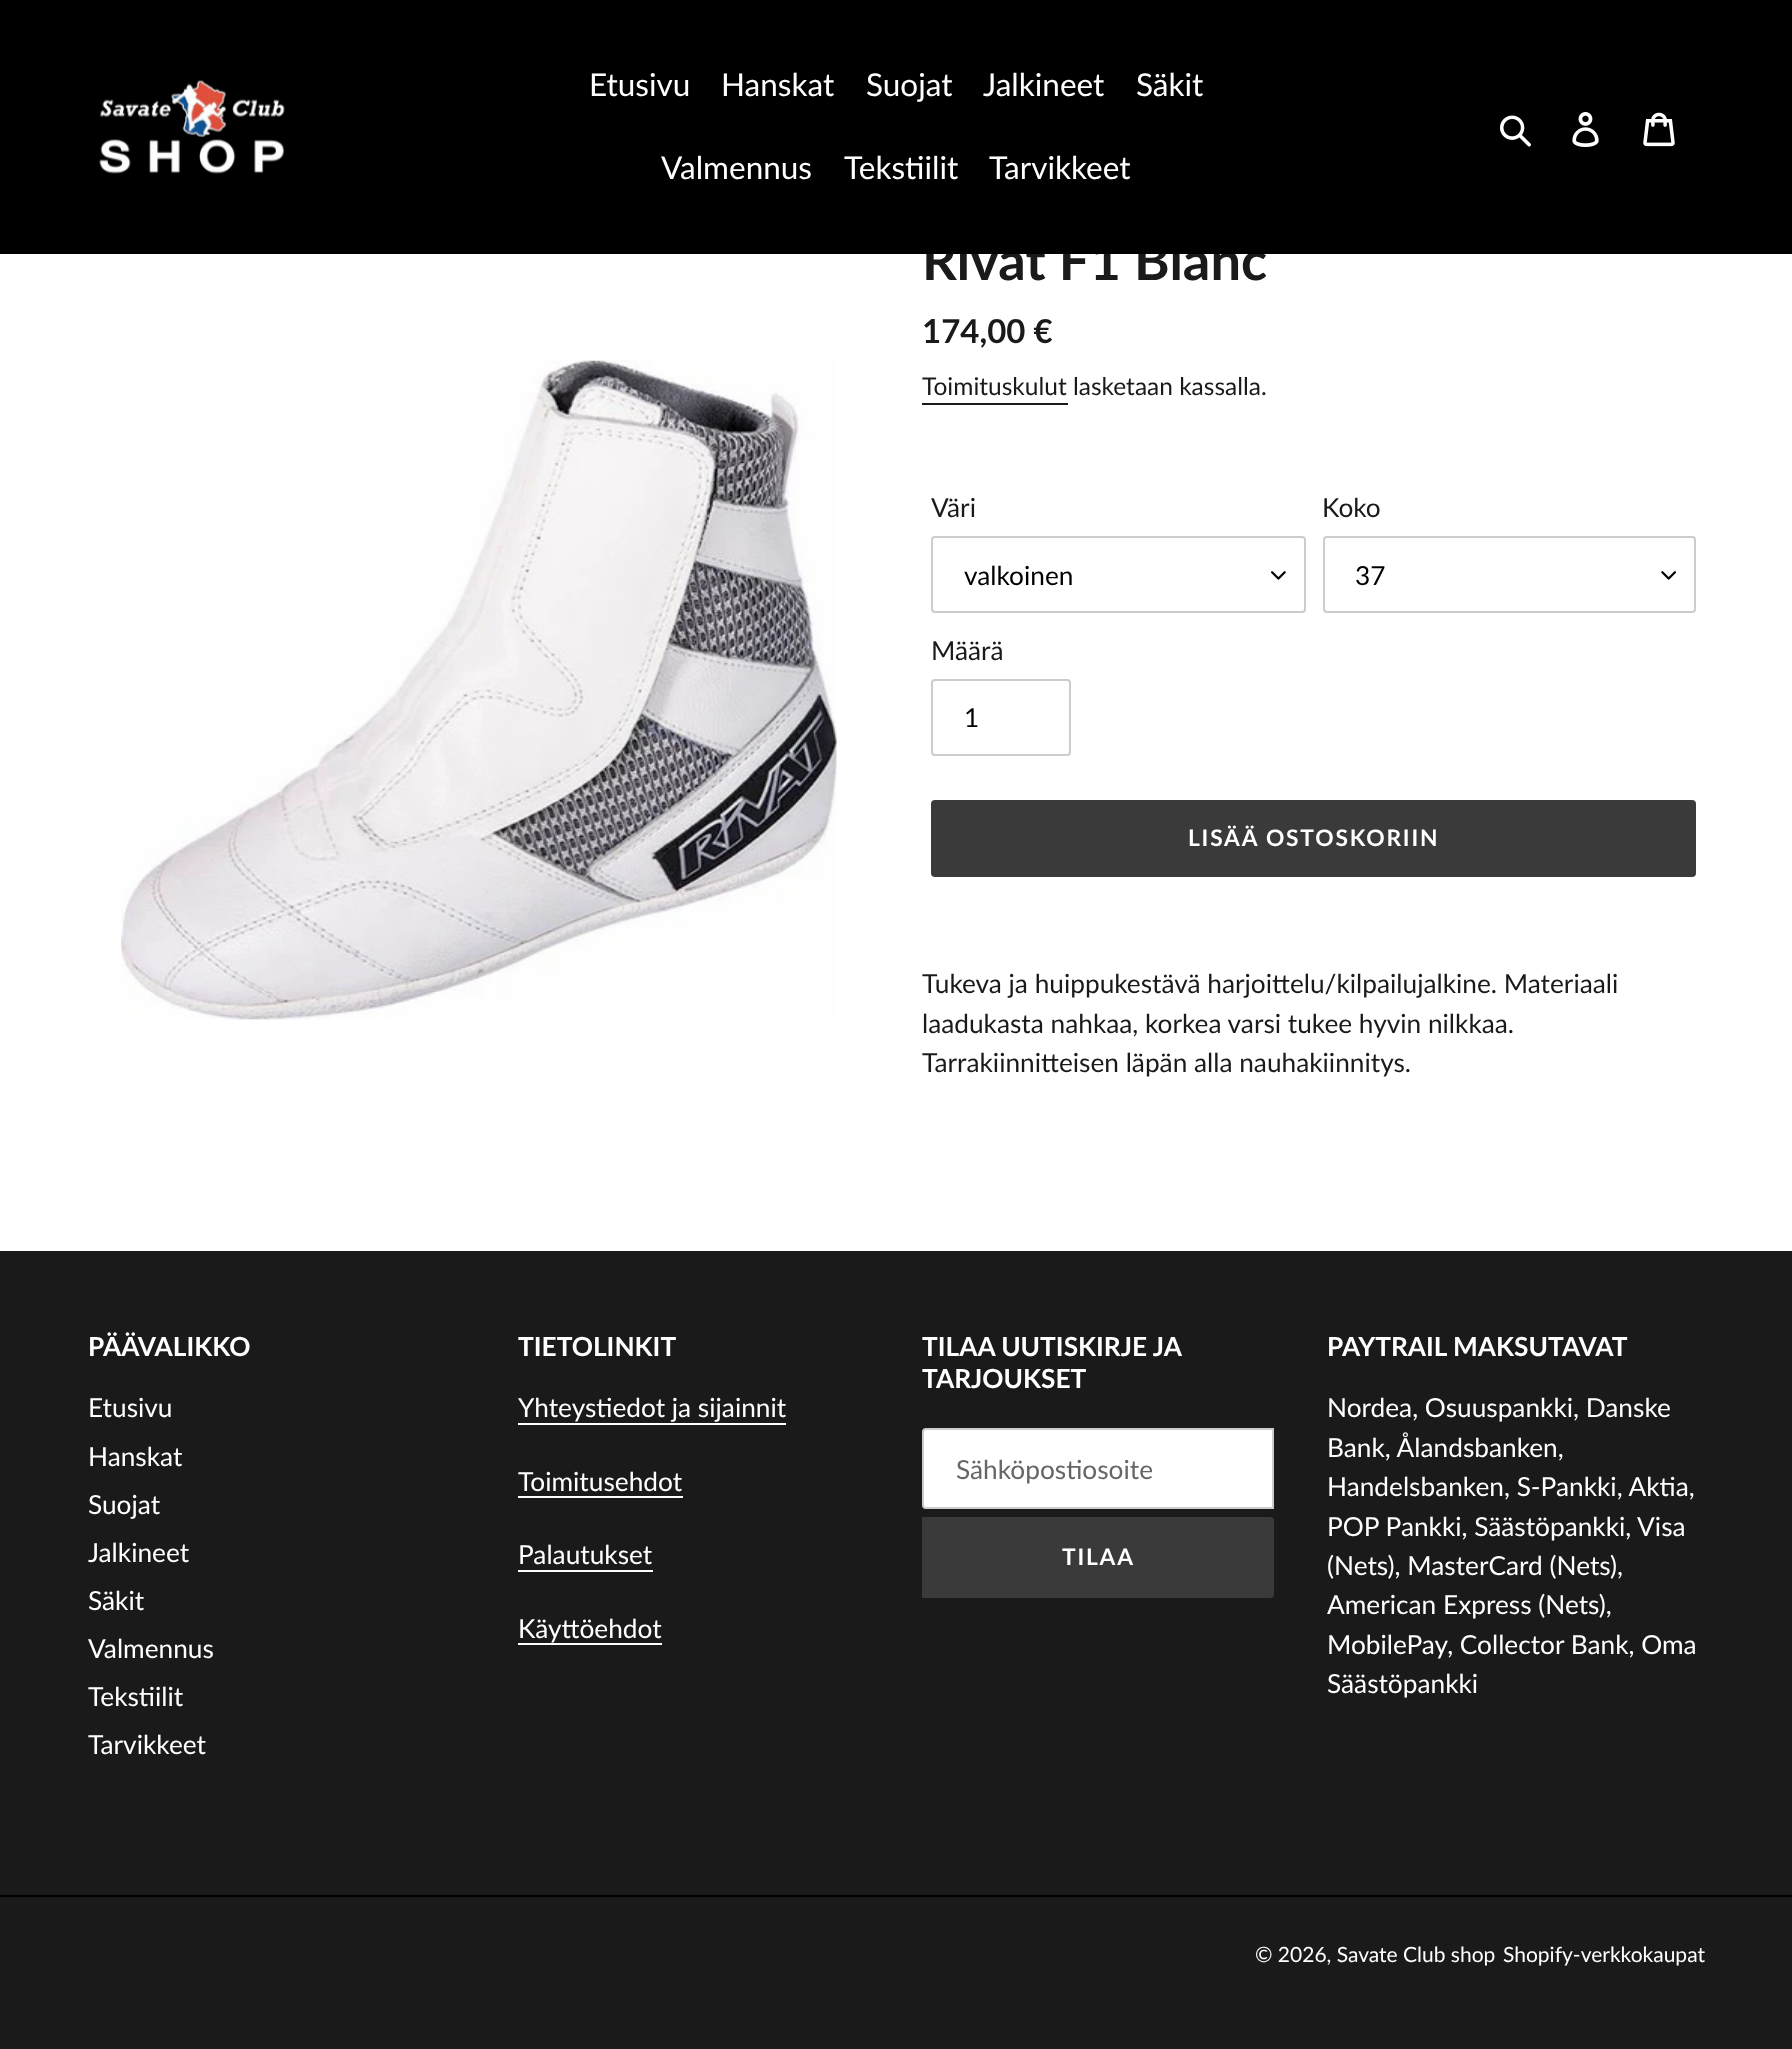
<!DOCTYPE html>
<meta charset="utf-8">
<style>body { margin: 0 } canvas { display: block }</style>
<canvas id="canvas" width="1792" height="2049"></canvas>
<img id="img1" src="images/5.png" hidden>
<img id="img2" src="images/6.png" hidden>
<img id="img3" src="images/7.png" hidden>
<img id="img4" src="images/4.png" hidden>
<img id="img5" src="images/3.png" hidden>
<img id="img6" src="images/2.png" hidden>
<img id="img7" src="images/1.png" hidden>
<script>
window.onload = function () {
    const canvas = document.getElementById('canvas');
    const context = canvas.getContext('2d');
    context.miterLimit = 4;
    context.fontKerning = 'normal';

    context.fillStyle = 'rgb(255, 255, 255)';
    context.fillRect(0, 0, 1792, 2049);
    context.drawImage(document.getElementById('img1'), 121, 359, 716, 661);
    context.fillStyle = 'rgb(26, 26, 26)';
    context.fillRect(922, 403, 146, 2);
    context.drawImage(document.getElementById('img2'), 1271, 571, 15, 9);
    context.beginPath();
    context.roundRect(932, 537, 373, 75, 3);
    context.strokeStyle = 'rgb(204, 204, 204)';
    context.lineWidth = 2;
    context.stroke();
    context.drawImage(document.getElementById('img3'), 1661, 571, 15, 9);
    context.beginPath();
    context.roundRect(1324, 537, 371, 75, 3);
    context.stroke();
    context.beginPath();
    context.roundRect(932, 680, 138, 75, 3);
    context.stroke();
    context.fillStyle = 'rgb(58, 58, 58)';
    context.beginPath();
    context.roundRect(931, 800, 765, 77, 4);
    context.fill();
    context.fillStyle = 'rgb(26, 26, 26)';
    context.fillRect(0, 1251, 1792, 798);
    context.fillStyle = 'rgb(255, 255, 255)';
    context.fillRect(518, 1423, 268, 2);
    context.fillRect(518, 1496, 165, 2);
    context.fillRect(518, 1570, 135, 2);
    context.fillRect(518, 1643, 144, 2);
    context.beginPath();
    context.roundRect(923, 1429, 350, 79, [3, 0, 0, 3]);
    context.fill();
    context.stroke();
    context.fillStyle = 'rgb(58, 58, 58)';
    context.beginPath();
    context.roundRect(922, 1517, 352, 81, [0, 4, 4, 0]);
    context.fill();
    context.fillStyle = 'rgb(0, 0, 0)';
    context.fillRect(0, 1895, 1792, 2);
    context.font = 'bold 54.25px Lato';
    context.fillStyle = 'rgb(26, 26, 26)';
    context.fillText('Rivat F1 Blanc', 922, 280);
    context.fillStyle = 'rgb(0, 0, 0)';
    context.fillRect(0, 0, 1792, 254);
    context.drawImage(document.getElementById('img4'), 1643, 112, 32, 35);
    context.drawImage(document.getElementById('img5'), 1572, 112, 27, 35);
    context.drawImage(document.getElementById('img6'), 1500, 115, 31, 32);
    context.font = '31.5px Lato';
    context.fillStyle = 'rgb(255, 255, 255)';
    context.fillText('Tarvikkeet', 989, 179);
    context.fillText('Tekstiilit', 844, 179);
    context.fillText('Valmennus', 661, 179);
    context.fillText('Säkit', 1136, 96);
    context.fillText('Jalkineet', 983, 96);
    context.fillText('Suojat', 866, 96);
    context.fillText('Hanskat', 721, 96);
    context.fillText('Etusivu', 589, 96);
    context.drawImage(document.getElementById('img7'), 99, 80, 186, 94);
    context.font = 'bold 33px Lato';
    context.fillStyle = 'rgb(26, 26, 26)';
    context.fillText('174,00 €', 922, 343);
    context.font = '24.5px Lato';
    context.fillText('Toimituskulut lasketaan kassalla.', 922, 395);
    context.font = '26.25px Lato';
    context.fillText('Väri', 931, 517);
    context.fillStyle = 'rgb(0, 0, 0)';
    context.fillText('valkoinen', 964, 585);
    context.fillStyle = 'rgb(26, 26, 26)';
    context.fillText('Koko', 1322, 517);
    context.fillStyle = 'rgb(0, 0, 0)';
    context.fillText('37', 1355, 585);
    context.fillStyle = 'rgb(26, 26, 26)';
    context.fillText('Määrä', 931, 660);
    context.fillStyle = 'rgb(0, 0, 0)';
    context.fillText('1', 964, 727);
    context.letterSpacing = '1.8px';
    context.font = 'bold 22.75px Lato';
    context.fillStyle = 'rgb(255, 255, 255)';
    context.fillText('LISÄÄ OSTOSKORIIN', 1188, 846);
    context.letterSpacing = '0px';
    context.font = '26.25px Lato';
    context.fillStyle = 'rgb(26, 26, 26)';
    context.fillText('Tukeva ja huippukestävä harjoittelu/kilpailujalkine. Materiaali', 922, 993);
    context.fillText('laadukasta nahkaa, korkea varsi tukee hyvin nilkkaa.', 922, 1033);
    context.fillText('Tarrakiinnitteisen läpän alla nauhakiinnitys.', 922, 1072);
    context.font = 'bold 26.25px Lato';
    context.fillStyle = 'rgb(255, 255, 255)';
    context.fillText('PÄÄVALIKKO', 88, 1356);
    context.font = '26.25px Lato';
    context.fillText('Etusivu', 88, 1417);
    context.fillText('Hanskat', 88, 1466);
    context.fillText('Suojat', 88, 1514);
    context.fillText('Jalkineet', 88, 1562);
    context.fillText('Säkit', 88, 1610);
    context.fillText('Valmennus', 88, 1658);
    context.fillText('Tekstiilit', 88, 1706);
    context.fillText('Tarvikkeet', 88, 1754);
    context.font = 'bold 26.25px Lato';
    context.fillText('TIETOLINKIT', 518, 1356);
    context.font = '26.25px Lato';
    context.fillText('Yhteystiedot ja sijainnit', 518, 1417);
    context.fillText('Toimitusehdot', 518, 1491);
    context.fillText('Palautukset', 518, 1564);
    context.fillText('Käyttöehdot', 518, 1638);
    context.font = 'bold 26.25px Lato';
    context.fillText('TILAA UUTISKIRJE JA', 922, 1356);
    context.fillText('TARJOUKSET', 922, 1388);
    context.font = '26.25px Lato';
    context.fillStyle = 'rgb(102, 102, 102)';
    context.fillText('Sähköpostiosoite', 956, 1479);
    context.letterSpacing = '1.8px';
    context.font = 'bold 22.75px Lato';
    context.fillStyle = 'rgb(255, 255, 255)';
    context.fillText('TILAA', 1062, 1565);
    context.letterSpacing = '0px';
    context.font = 'bold 26.25px Lato';
    context.fillText('PAYTRAIL MAKSUTAVAT', 1327, 1356);
    context.font = '26.25px Lato';
    context.fillText('Nordea, Osuuspankki, Danske', 1327, 1417);
    context.fillText('Bank, Ålandsbanken,', 1327, 1457);
    context.fillText('Handelsbanken, S-Pankki, Aktia,', 1327, 1496);
    context.fillText('POP Pankki, Säästöpankki, Visa', 1327, 1536);
    context.fillText('(Nets), MasterCard (Nets),', 1327, 1575);
    context.fillText('American Express (Nets),', 1327, 1614);
    context.fillText('MobilePay, Collector Bank, Oma', 1327, 1654);
    context.fillText('Säästöpankki', 1327, 1693);
    context.font = '21px Lato';
    context.fillText('© 2026, Savate Club shop', 1255, 1962);
    context.fillText('Shopify-verkkokaupat', 1503, 1962);
};
</script>
